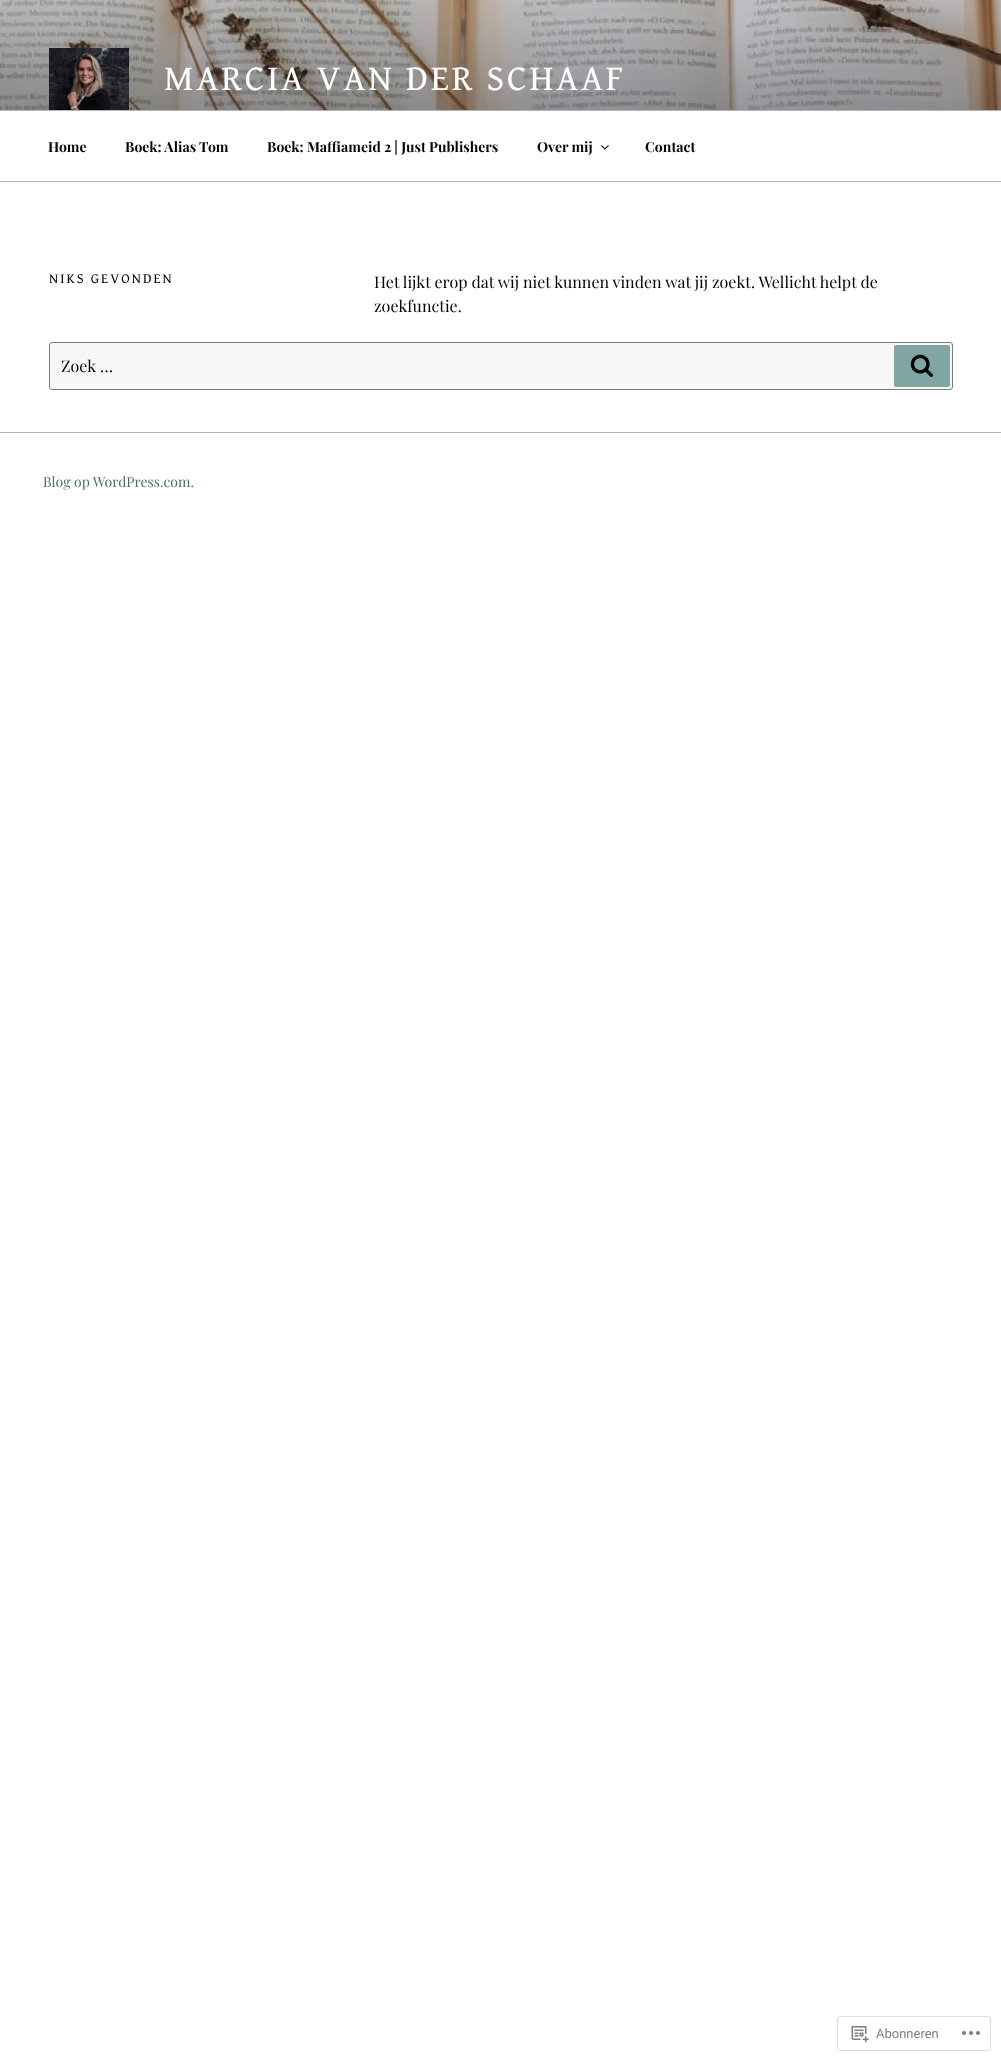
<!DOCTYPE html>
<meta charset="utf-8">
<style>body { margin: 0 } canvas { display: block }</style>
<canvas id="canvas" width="1001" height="2061"></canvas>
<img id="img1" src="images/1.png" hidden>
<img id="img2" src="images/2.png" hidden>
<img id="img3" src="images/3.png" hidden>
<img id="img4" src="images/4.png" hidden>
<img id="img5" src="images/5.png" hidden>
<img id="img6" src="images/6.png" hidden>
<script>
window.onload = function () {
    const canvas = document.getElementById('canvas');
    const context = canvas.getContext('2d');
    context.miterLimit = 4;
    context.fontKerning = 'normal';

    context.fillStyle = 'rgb(255, 255, 255)';
    context.fillRect(0, 0, 1001, 2061);
    context.drawImage(document.getElementById('img1'), 0, 0, 1001, 110);
    context.drawImage(document.getElementById('img2'), 49, 48, 80, 62);
    context.fillStyle = 'rgb(181, 181, 181)';
    context.fillRect(0, 110, 1001, 1);
    context.fillRect(0, 181, 1001, 1);
    context.drawImage(document.getElementById('img3'), 601, 145, 8, 5);
    context.fillStyle = 'rgb(247, 247, 247)';
    context.beginPath();
    context.roundRect(49.5, 342.5, 903, 47, 2.5);
    context.fill();
    context.strokeStyle = 'rgb(124, 124, 124)';
    context.stroke();
    context.fillStyle = 'rgb(128, 166, 163)';
    context.beginPath();
    context.roundRect(894, 345, 56, 42, 2);
    context.fill();
    context.drawImage(document.getElementById('img4'), 910, 354, 23, 23);
    context.fillStyle = 'rgb(181, 181, 181)';
    context.fillRect(0, 432, 1001, 1);
    context.beginPath();
    context.roundRect(837.5, 2016.5, 153, 34, 2.5);
    context.strokeStyle = 'rgb(221, 221, 223)';
    context.stroke();
    context.drawImage(document.getElementById('img5'), 851, 2026, 18, 17);
    context.drawImage(document.getElementById('img6'), 962, 2031, 18, 4);
    context.letterSpacing = '2.9px';
    context.font = '36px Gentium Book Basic';
    context.fillStyle = 'rgb(255, 255, 255)';
    context.fillText('MARCIA VAN DER SCHAAF', 164, 90);
    context.letterSpacing = '0px';
    context.font = 'bold 14px Playfair Display';
    context.fillStyle = 'rgb(4, 4, 4)';
    context.fillText('Home', 48, 152);
    context.fillText('Boek: Alias Tom', 125, 152);
    context.fillText('Boek: Maffiameid 2 | Just Publishers', 267, 152);
    context.fillText('Over mij', 537, 152);
    context.fillText('Contact', 645, 152);
    context.letterSpacing = '2px';
    context.font = '14px Gentium Book Basic';
    context.fillText('NIKS GEVONDEN', 49, 283);
    context.letterSpacing = '0px';
    context.font = '16px Playfair Display';
    context.fillText('Het lijkt erop dat wij niet kunnen vinden wat jij zoekt. Wellicht helpt de', 374, 288);
    context.fillText('zoekfunctie.', 374, 312);
    context.fillText('Zoek …', 61, 372);
    context.font = '14px Playfair Display';
    context.fillStyle = 'rgb(71, 115, 105)';
    context.fillText('Blog op WordPress.com.', 43, 487);
    context.font = '13px Roboto';
    context.fillStyle = 'rgb(123, 127, 133)';
    context.fillText('Abonneren', 876, 2038);
};
</script>
